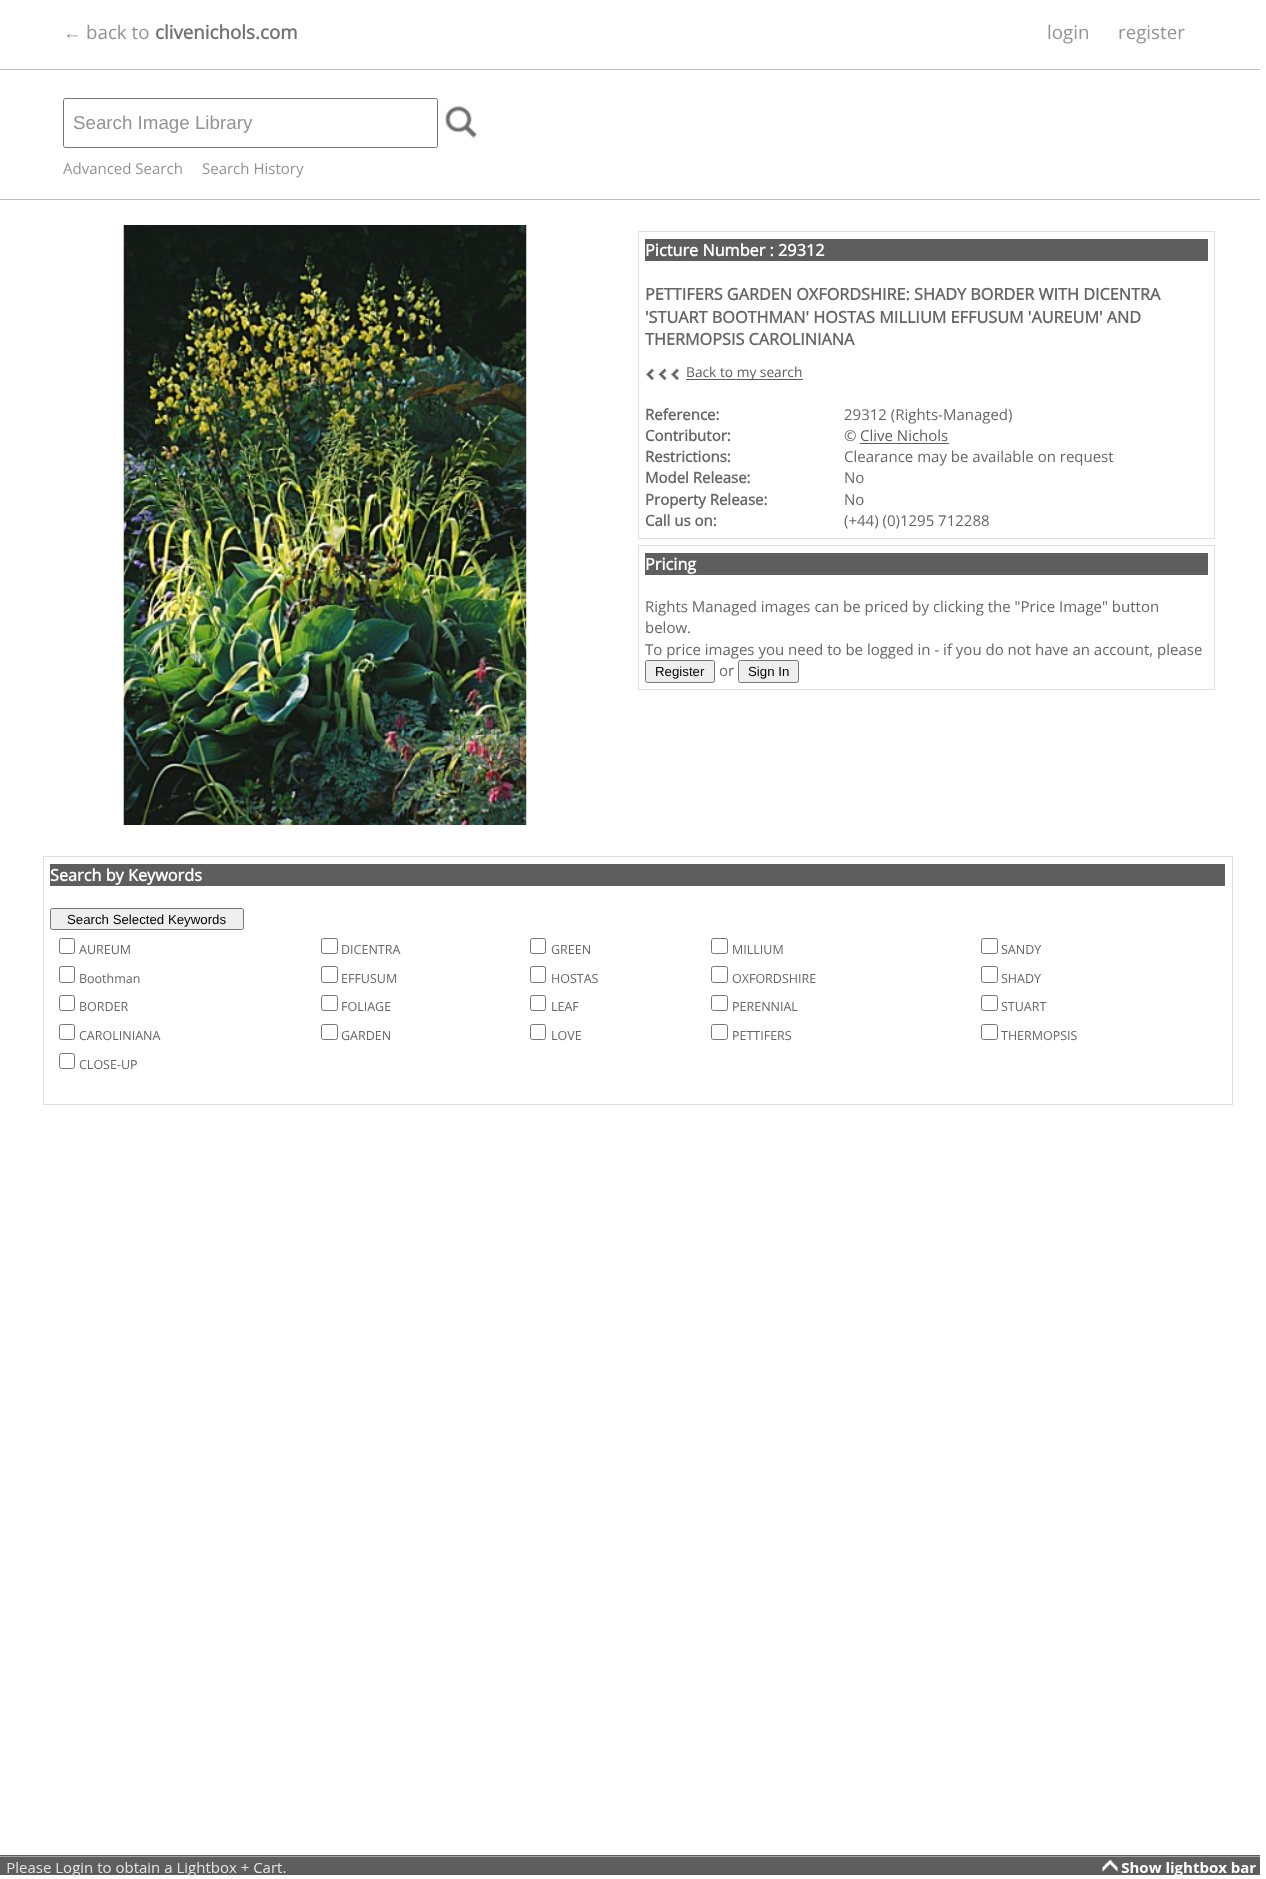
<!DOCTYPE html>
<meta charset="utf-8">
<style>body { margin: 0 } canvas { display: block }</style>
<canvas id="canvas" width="1266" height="1879"></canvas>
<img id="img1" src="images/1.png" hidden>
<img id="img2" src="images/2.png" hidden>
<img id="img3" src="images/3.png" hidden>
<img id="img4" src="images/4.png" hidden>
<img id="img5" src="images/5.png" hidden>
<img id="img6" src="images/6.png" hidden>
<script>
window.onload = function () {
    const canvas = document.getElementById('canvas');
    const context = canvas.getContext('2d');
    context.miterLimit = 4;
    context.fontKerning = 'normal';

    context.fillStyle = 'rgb(255, 255, 255)';
    context.fillRect(0, 0, 1266, 1879);
    context.fillStyle = 'rgb(186, 192, 192)';
    context.fillRect(0, 199, 1260, 1);
    context.fillRect(0, 69, 1260, 1);
    context.beginPath();
    context.roundRect(63.5, 98.5, 374, 49, 2);
    context.strokeStyle = 'rgb(118, 118, 118)';
    context.stroke();
    context.drawImage(document.getElementById('img1'), 445, 106, 33, 32);
    context.drawImage(document.getElementById('img2'), 123, 225, 404, 600);
    context.strokeStyle = 'rgb(223, 223, 223)';
    context.strokeRect(638.5, 231.5, 576, 307);
    context.fillStyle = 'rgb(94, 94, 94)';
    context.fillRect(645, 239, 563, 22);
    context.drawImage(document.getElementById('img3'), 646, 368, 8, 13);
    context.drawImage(document.getElementById('img4'), 658, 368, 9, 13);
    context.drawImage(document.getElementById('img5'), 671, 368, 8, 13);
    context.fillRect(686, 379, 117, 1);
    context.fillRect(860, 443, 89, 1);
    context.strokeRect(638.5, 545.5, 576, 144);
    context.fillRect(645, 553, 563, 22);
    context.fillStyle = 'rgb(239, 239, 239)';
    context.beginPath();
    context.roundRect(645.5, 660.5, 69, 22, 2);
    context.fill();
    context.strokeStyle = 'rgb(118, 118, 118)';
    context.stroke();
    context.beginPath();
    context.roundRect(738.5, 660.5, 60, 22, 2);
    context.fill();
    context.stroke();
    context.strokeStyle = 'rgb(223, 223, 223)';
    context.strokeRect(43.5, 856.5, 1189, 248);
    context.fillStyle = 'rgb(94, 94, 94)';
    context.fillRect(50, 864, 1175, 22);
    context.fillStyle = 'rgb(239, 239, 239)';
    context.beginPath();
    context.roundRect(50.5, 908.5, 193, 21, 2);
    context.fill();
    context.strokeStyle = 'rgb(118, 118, 118)';
    context.stroke();
    context.beginPath();
    context.roundRect(59.5, 938.5, 15, 15, 2);
    context.stroke();
    context.beginPath();
    context.roundRect(321.5, 938.5, 16, 15, 2);
    context.stroke();
    context.beginPath();
    context.roundRect(530.5, 938.5, 15, 15, 2);
    context.stroke();
    context.beginPath();
    context.roundRect(711.5, 938.5, 16, 15, 2);
    context.stroke();
    context.beginPath();
    context.roundRect(981.5, 938.5, 16, 15, 2);
    context.stroke();
    context.beginPath();
    context.roundRect(59.5, 966.5, 15, 16, 2);
    context.stroke();
    context.beginPath();
    context.roundRect(321.5, 966.5, 16, 16, 2);
    context.stroke();
    context.beginPath();
    context.roundRect(530.5, 966.5, 15, 16, 2);
    context.stroke();
    context.beginPath();
    context.roundRect(711.5, 966.5, 16, 16, 2);
    context.stroke();
    context.beginPath();
    context.roundRect(981.5, 966.5, 16, 16, 2);
    context.stroke();
    context.beginPath();
    context.roundRect(59.5, 995.5, 15, 15, 2);
    context.stroke();
    context.beginPath();
    context.roundRect(321.5, 995.5, 16, 15, 2);
    context.stroke();
    context.beginPath();
    context.roundRect(530.5, 995.5, 15, 15, 2);
    context.stroke();
    context.beginPath();
    context.roundRect(711.5, 995.5, 16, 15, 2);
    context.stroke();
    context.beginPath();
    context.roundRect(981.5, 995.5, 16, 15, 2);
    context.stroke();
    context.beginPath();
    context.roundRect(59.5, 1024.5, 15, 15, 2);
    context.stroke();
    context.beginPath();
    context.roundRect(321.5, 1024.5, 16, 15, 2);
    context.stroke();
    context.beginPath();
    context.roundRect(530.5, 1024.5, 15, 15, 2);
    context.stroke();
    context.beginPath();
    context.roundRect(711.5, 1024.5, 16, 15, 2);
    context.stroke();
    context.beginPath();
    context.roundRect(981.5, 1024.5, 16, 15, 2);
    context.stroke();
    context.beginPath();
    context.roundRect(59.5, 1053.5, 15, 15, 2);
    context.stroke();
    context.fillStyle = 'rgb(94, 94, 94)';
    context.fillRect(0, 1855, 1260, 1);
    context.drawImage(document.getElementById('img6'), 0, 1856, 1260, 21);
    context.font = '18.75px Liberation Sans';
    context.fillStyle = 'rgb(147, 147, 147)';
    context.fillText('←', 63, 39);
    context.font = '18.75px Open Sans';
    context.fillText('back to', 86, 39);
    context.font = 'bold 18.75px Open Sans';
    context.fillStyle = 'rgb(115, 115, 115)';
    context.fillText('clivenichols.com', 155, 39);
    context.font = '18.75px Open Sans';
    context.fillStyle = 'rgb(147, 147, 147)';
    context.fillText('login', 1047, 39);
    context.fillText('register', 1118, 39);
    context.font = '18.75px Liberation Sans';
    context.fillText('Search Image Library', 73, 129);
    context.font = '15px Open Sans';
    context.fillText('Advanced Search', 63, 174);
    context.fillText('Search History', 202, 174);
    context.font = 'bold 16.25px Open Sans';
    context.fillStyle = 'rgb(255, 255, 255)';
    context.fillText('Picture Number : 29312', 645, 256);
    context.fillStyle = 'rgb(102, 102, 102)';
    context.fillText('PETTIFERS GARDEN OXFORDSHIRE: SHADY BORDER WITH DICENTRA', 645, 300);
    context.fillText('\'STUART BOOTHMAN\' HOSTAS MILLIUM EFFUSUM \'AUREUM\' AND', 645, 323);
    context.fillText('THERMOPSIS CAROLINIANA', 645, 345);
    context.font = '13.75px Open Sans';
    context.fillStyle = 'rgb(94, 94, 94)';
    context.fillText('Back to my search', 686, 377);
    context.font = 'bold 15px Open Sans';
    context.fillStyle = 'rgb(102, 102, 102)';
    context.fillText('Reference:', 645, 420);
    context.font = '15px Open Sans';
    context.fillText('29312 (Rights-Managed)', 844, 420);
    context.font = 'bold 15px Open Sans';
    context.fillText('Contributor:', 645, 441);
    context.font = '15px Open Sans';
    context.fillText('©', 844, 441);
    context.fillStyle = 'rgb(94, 94, 94)';
    context.fillText('Clive Nichols', 860, 441);
    context.font = 'bold 15px Open Sans';
    context.fillStyle = 'rgb(102, 102, 102)';
    context.fillText('Restrictions:', 645, 462);
    context.font = '15px Open Sans';
    context.fillText('Clearance may be available on request', 844, 462);
    context.font = 'bold 15px Open Sans';
    context.fillText('Model Release:', 645, 483);
    context.font = '15px Open Sans';
    context.fillText('No', 844, 483);
    context.font = 'bold 15px Open Sans';
    context.fillText('Property Release:', 645, 505);
    context.font = '15px Open Sans';
    context.fillText('No', 844, 505);
    context.font = 'bold 15px Open Sans';
    context.fillText('Call us on:', 645, 526);
    context.font = '15px Open Sans';
    context.fillText('(+44) (0)1295 712288', 844, 526);
    context.font = 'bold 16.25px Open Sans';
    context.fillStyle = 'rgb(255, 255, 255)';
    context.fillText('Pricing', 645, 570);
    context.font = '15px Open Sans';
    context.fillStyle = 'rgb(102, 102, 102)';
    context.fillText('Rights Managed images can be priced by clicking the "Price Image" button', 645, 612);
    context.fillText('below.', 645, 633);
    context.fillText('To price images you need to be logged in - if you do not have an account, please', 645, 655);
    context.font = '13.25px Liberation Sans';
    context.fillStyle = 'rgb(0, 0, 0)';
    context.fillText('Register', 655, 676);
    context.font = '15px Open Sans';
    context.fillStyle = 'rgb(102, 102, 102)';
    context.fillText('or', 719, 676);
    context.font = '13.25px Liberation Sans';
    context.fillStyle = 'rgb(0, 0, 0)';
    context.fillText('Sign In', 748, 676);
    context.font = 'bold 16.25px Open Sans';
    context.fillStyle = 'rgb(255, 255, 255)';
    context.fillText('Search by Keywords', 50, 881);
    context.font = '13.25px Liberation Sans';
    context.fillStyle = 'rgb(0, 0, 0)';
    context.fillText('Search Selected Keywords', 67, 924);
    context.font = '12.5px Open Sans';
    context.fillStyle = 'rgb(102, 102, 102)';
    context.fillText('AUREUM', 79, 954);
    context.fillText('DICENTRA', 341, 954);
    context.fillText('GREEN', 551, 954);
    context.fillText('MILLIUM', 732, 954);
    context.fillText('SANDY', 1001, 954);
    context.fillText('Boothman', 79, 983);
    context.fillText('EFFUSUM', 341, 983);
    context.fillText('HOSTAS', 551, 983);
    context.fillText('OXFORDSHIRE', 732, 983);
    context.fillText('SHADY', 1001, 983);
    context.fillText('BORDER', 79, 1011);
    context.fillText('FOLIAGE', 341, 1011);
    context.fillText('LEAF', 551, 1011);
    context.fillText('PERENNIAL', 732, 1011);
    context.fillText('STUART', 1001, 1011);
    context.fillText('CAROLINIANA', 79, 1040);
    context.fillText('GARDEN', 341, 1040);
    context.fillText('LOVE', 551, 1040);
    context.fillText('PETTIFERS', 732, 1040);
    context.fillText('THERMOPSIS', 1001, 1040);
    context.fillText('CLOSE-UP', 79, 1069);
};
</script>
